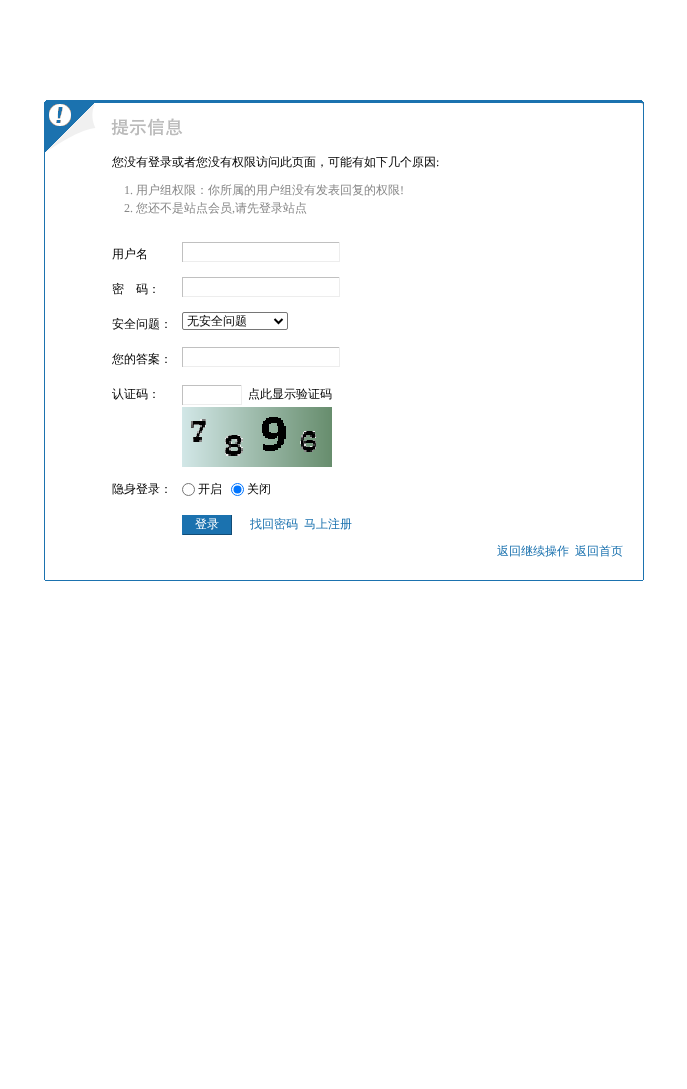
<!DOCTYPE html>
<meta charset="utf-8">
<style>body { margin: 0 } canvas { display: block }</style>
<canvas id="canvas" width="687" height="1089"></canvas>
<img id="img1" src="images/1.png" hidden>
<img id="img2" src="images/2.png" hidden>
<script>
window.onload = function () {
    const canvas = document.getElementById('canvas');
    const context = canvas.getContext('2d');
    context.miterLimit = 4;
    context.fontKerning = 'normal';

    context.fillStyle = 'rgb(255, 255, 255)';
    context.fillRect(0, 0, 687, 1089);
    context.fillStyle = 'rgb(27, 114, 175)';
    context.fillRect(46, 100, 596, 1);
    context.fillRect(45, 101, 598, 1);
    context.fillRect(44, 102, 600, 478);
    context.drawImage(document.getElementById('img1'), 45, 103, 598, 50);
    context.fillStyle = 'rgb(255, 255, 255)';
    context.fillRect(45, 153, 598, 427);
    context.fillStyle = 'rgb(192, 192, 192)';
    context.fillRect(182, 242, 158, 1);
    context.fillStyle = 'rgb(237, 237, 237)';
    context.fillRect(339, 242, 1, 20);
    context.fillRect(182, 261, 158, 1);
    context.fillStyle = 'rgb(192, 192, 192)';
    context.fillRect(182, 242, 1, 20);
    context.fillRect(182, 277, 158, 1);
    context.fillStyle = 'rgb(237, 237, 237)';
    context.fillRect(339, 277, 1, 20);
    context.fillRect(182, 296, 158, 1);
    context.fillStyle = 'rgb(192, 192, 192)';
    context.fillRect(182, 277, 1, 20);
    context.beginPath();
    context.roundRect(182.5, 312.5, 105, 17, 1.5);
    context.strokeStyle = 'rgb(118, 118, 118)';
    context.stroke();
    context.beginPath();
    context.moveTo(274.5, 319);
    context.lineTo(278.5, 323);
    context.lineTo(282.5, 319);
    context.strokeStyle = 'rgb(0, 0, 0)';
    context.lineWidth = 2;
    context.stroke();
    context.fillRect(182, 347, 158, 1);
    context.fillStyle = 'rgb(237, 237, 237)';
    context.fillRect(339, 347, 1, 20);
    context.fillRect(182, 366, 158, 1);
    context.fillStyle = 'rgb(192, 192, 192)';
    context.fillRect(182, 347, 1, 20);
    context.fillRect(182, 385, 60, 1);
    context.fillStyle = 'rgb(237, 237, 237)';
    context.fillRect(241, 385, 1, 20);
    context.fillRect(182, 404, 60, 1);
    context.fillStyle = 'rgb(192, 192, 192)';
    context.fillRect(182, 385, 1, 20);
    context.drawImage(document.getElementById('img2'), 182, 407, 150, 60);
    context.beginPath();
    context.arc(188.5, 489.5, 6, 0, 2 * Math.PI);
    context.strokeStyle = 'rgb(118, 118, 118)';
    context.lineWidth = 1;
    context.stroke();
    context.beginPath();
    context.arc(237.5, 489.5, 6, 0, 2 * Math.PI);
    context.strokeStyle = 'rgb(0, 117, 255)';
    context.stroke();
    context.fillStyle = 'rgb(0, 117, 255)';
    context.beginPath();
    context.arc(237.5, 489.5, 4, 0, 2 * Math.PI);
    context.fill();
    context.fillStyle = 'rgb(27, 114, 175)';
    context.fillRect(183, 515, 48, 19);
    context.fillStyle = 'rgb(18, 76, 117)';
    context.fillRect(231, 515, 1, 20);
    context.fillRect(182, 534, 50, 1);
    context.fillStyle = 'rgb(27, 114, 175)';
    context.fillRect(182, 515, 1, 20);
    context.fillRect(45, 580, 598, 1);
    context.font = '500 12px WenQuanYi Zen Hei';
    context.fillStyle = 'rgb(0, 0, 0)';
    context.fillText('您没有登录或者您没有权限访问此页面，可能有如下几个原因', 112, 166);
    context.font = '12px Liberation Serif';
    context.fillText(':', 436, 166);
    context.fillStyle = 'rgb(136, 136, 136)';
    context.fillText('1.', 124, 194);
    context.font = '500 12px WenQuanYi Zen Hei';
    context.fillText('用户组权限：你所属的用户组没有发表回复的权限', 136, 194);
    context.font = '12px Liberation Serif';
    context.fillText('!', 400, 194);
    context.fillText('2.', 124, 212);
    context.font = '500 12px WenQuanYi Zen Hei';
    context.fillText('您还不是站点会员', 136, 212);
    context.font = '12px Liberation Serif';
    context.fillText(',', 232, 212);
    context.font = '500 12px WenQuanYi Zen Hei';
    context.fillText('请先登录站点', 235, 212);
    context.fillStyle = 'rgb(0, 0, 0)';
    context.fillText('用户名', 112, 258);
    context.fillText('密　码：', 112, 293);
    context.fillText('安全问题：', 112, 328);
    context.fillText('无安全问题', 187, 325);
    context.fillText('您的答案：', 112, 363);
    context.fillText('认证码：', 112, 398);
    context.fillText('点此显示验证码', 248, 398);
    context.fillText('隐身登录：', 112, 493);
    context.fillText('开启', 198, 493);
    context.fillText('关闭', 247, 493);
    context.fillStyle = 'rgb(255, 255, 255)';
    context.fillText('登录', 195, 528);
    context.fillStyle = 'rgb(27, 114, 175)';
    context.fillText('找回密码', 250, 528);
    context.fillText('马上注册', 304, 528);
    context.fillText('返回继续操作', 497, 555);
    context.fillText('返回首页', 575, 555);
};
</script>
